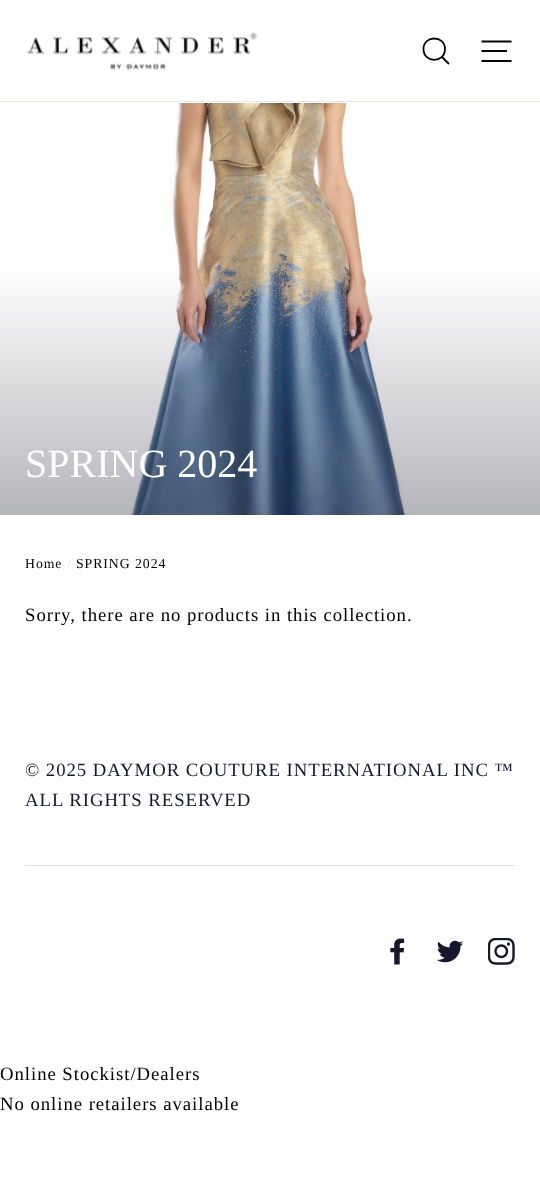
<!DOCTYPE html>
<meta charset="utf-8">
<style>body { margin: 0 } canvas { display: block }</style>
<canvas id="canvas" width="540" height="1191"></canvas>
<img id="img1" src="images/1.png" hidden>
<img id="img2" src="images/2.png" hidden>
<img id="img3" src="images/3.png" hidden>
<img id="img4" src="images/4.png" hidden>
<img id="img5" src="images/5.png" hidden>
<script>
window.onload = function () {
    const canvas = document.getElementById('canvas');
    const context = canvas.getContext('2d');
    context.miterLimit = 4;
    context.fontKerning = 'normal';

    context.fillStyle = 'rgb(255, 255, 255)';
    context.fillRect(0, 0, 540, 1191);
    context.fillStyle = 'rgb(232, 232, 225)';
    context.fillRect(0, 101, 540, 1);
    context.drawImage(document.getElementById('img1'), 27, 32, 231, 38);
    context.beginPath();
    context.moveTo(445, 49);
    context.bezierCurveTo(445, 63.5, 423.5, 63.5, 423.5, 49);
    context.bezierCurveTo(423.5, 35, 445, 35, 445, 49);
    context.closePath();
    context.moveTo(449, 64);
    context.lineTo(442, 57);
    context.strokeStyle = 'rgb(4, 4, 4)';
    context.lineWidth = 1.8;
    context.stroke();
    context.beginPath();
    context.moveTo(481.5, 41.5);
    context.lineTo(511.5, 41.5);
    context.moveTo(481.5, 51);
    context.lineTo(507, 51);
    context.moveTo(481.5, 61);
    context.lineTo(511.5, 61);
    context.stroke();
    context.drawImage(document.getElementById('img2'), 0, 103, 540, 412);
    context.fillStyle = 'rgb(227, 227, 230)';
    context.fillRect(25, 865, 490, 1);
    context.drawImage(document.getElementById('img3'), 390, 938, 15, 27);
    context.drawImage(document.getElementById('img4'), 436, 940, 27, 23);
    context.drawImage(document.getElementById('img5'), 488, 938, 27, 27);
    context.font = '40px Liberation Serif';
    context.fillStyle = 'rgb(255, 255, 255)';
    context.fillText('SPRING 2024', 25, 477);
    context.letterSpacing = '0.95px';
    context.font = '13.75px Liberation Serif';
    context.fillStyle = 'rgb(0, 0, 0)';
    context.fillText('Home', 25, 568);
    context.fillStyle = 'rgb(232, 232, 225)';
    context.fillText('/', 67, 568);
    context.fillStyle = 'rgb(0, 0, 0)';
    context.fillText('SPRING 2024', 76, 568);
    context.font = '18.75px Liberation Serif';
    context.fillText('Sorry, there are no products in this collection.', 25, 621);
    context.fillStyle = 'rgb(23, 23, 44)';
    context.fillText('© 2025 DAYMOR COUTURE INTERNATIONAL INC ™', 25, 776);
    context.fillText('ALL RIGHTS RESERVED', 25, 806);
    context.fillStyle = 'rgb(0, 0, 0)';
    context.fillText('Online Stockist/Dealers', 0, 1080);
    context.fillText('No online retailers available', 0, 1110);
};
</script>
